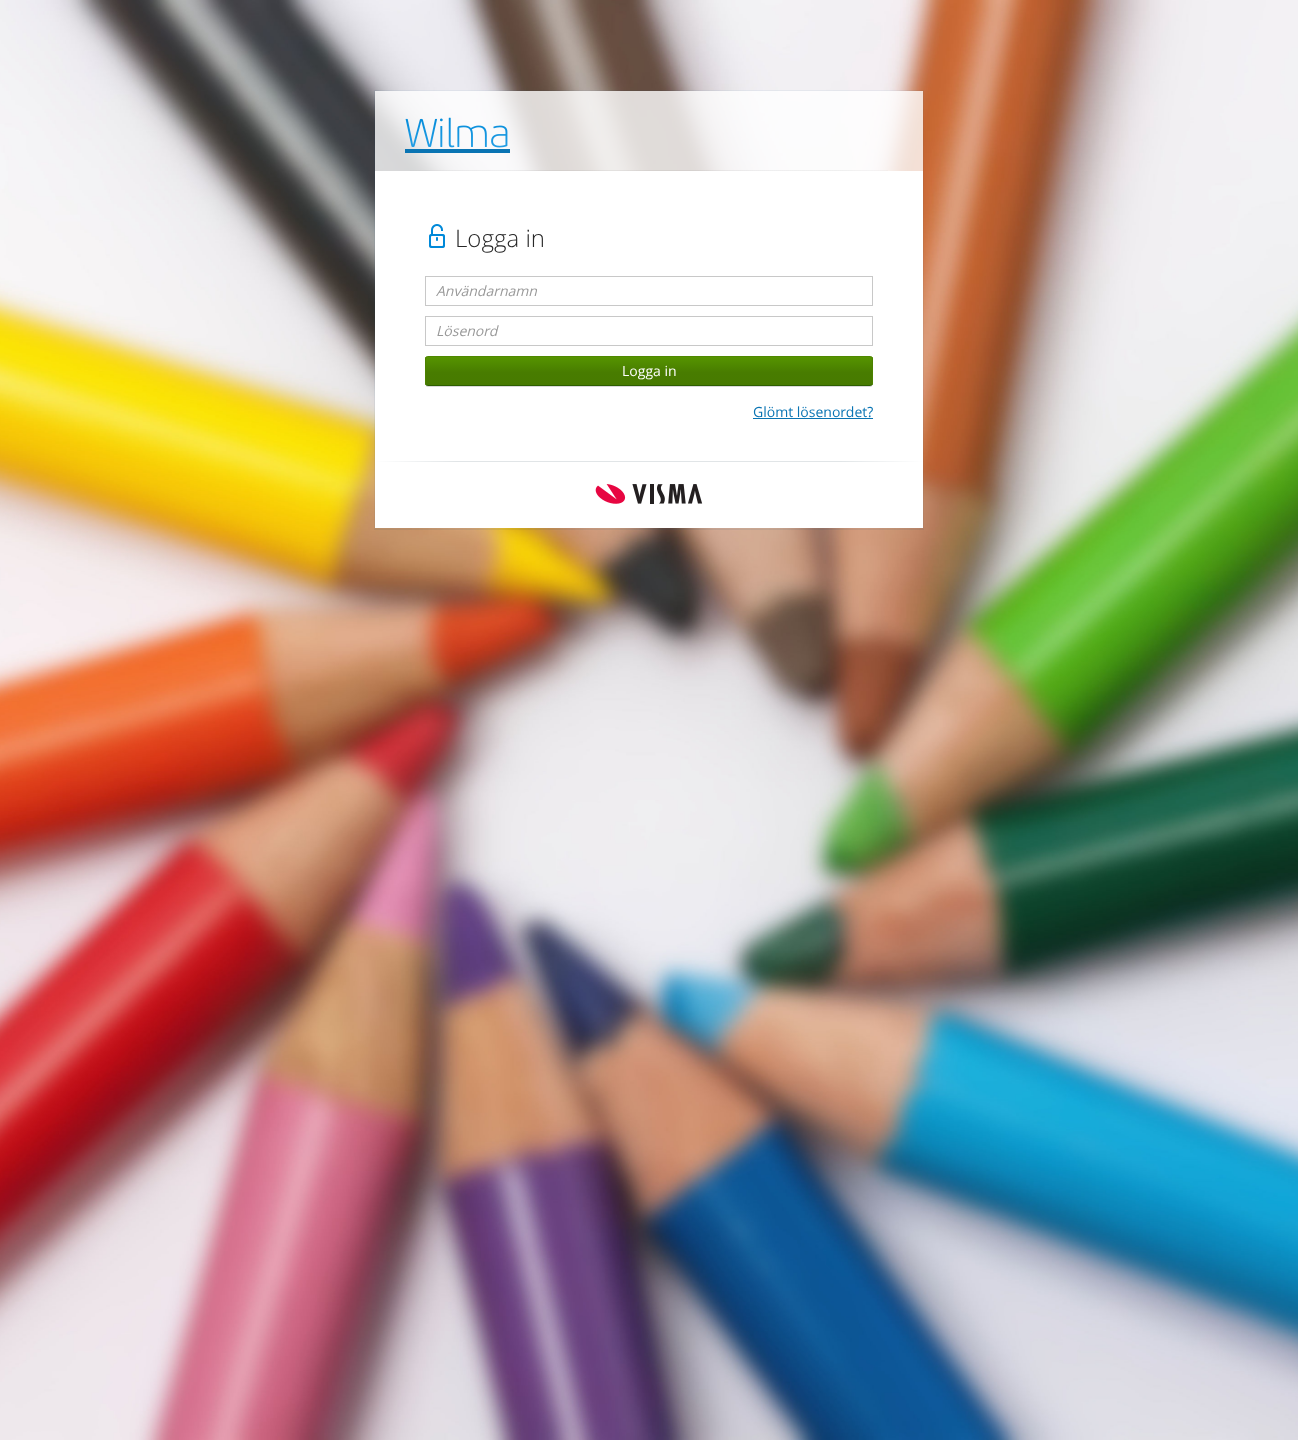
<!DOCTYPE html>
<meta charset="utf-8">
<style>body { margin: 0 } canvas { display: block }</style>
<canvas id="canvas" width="1298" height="1440"></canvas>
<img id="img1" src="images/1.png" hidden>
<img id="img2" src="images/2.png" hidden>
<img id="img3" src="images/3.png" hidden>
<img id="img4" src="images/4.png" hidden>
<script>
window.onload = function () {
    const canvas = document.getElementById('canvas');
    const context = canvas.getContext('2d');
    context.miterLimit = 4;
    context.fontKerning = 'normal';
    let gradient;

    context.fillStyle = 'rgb(255, 255, 255)';
    context.fillRect(0, 0, 1298, 1440);
    context.drawImage(document.getElementById('img1'), 0, 0, 1298, 1440);
    context.save();
    context.beginPath();
    context.rect(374, 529, 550, 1);
    context.clip();
    context.fillStyle = 'rgba(0, 81, 128, 0.08)';
    context.filter = 'blur(0.5px)';
    context.beginPath();
    context.rect(374, 91, 550, 439);
    context.fill();
    context.filter = 'none';
    context.restore();
    context.strokeStyle = 'rgba(0, 81, 128, 0.05)';
    context.strokeRect(374.5, 90.5, 549, 438);
    context.fillStyle = 'rgba(255, 255, 255, 0.8)';
    context.fillRect(375, 91, 548, 80);
    context.drawImage(document.getElementById('img2'), 405, 117, 103, 31);
    context.fillStyle = 'rgb(9, 116, 179)';
    context.fillRect(405, 149, 105, 4);
    gradient = context.createLinearGradient(375, 171, 923, 170);
    gradient.addColorStop(0, 'rgba(0, 0, 0, 0)');
    gradient.addColorStop(0.15, 'rgba(0, 0, 0, 0.05)');
    gradient.addColorStop(0.85, 'rgba(0, 0, 0, 0.05)');
    gradient.addColorStop(1, 'rgba(0, 0, 0, 0)');
    context.fillStyle = gradient;
    context.fillRect(410, 170, 478, 1);
    context.fillStyle = 'rgb(255, 255, 255)';
    context.fillRect(375, 171, 548, 290);
    context.drawImage(document.getElementById('img3'), 429, 224, 16, 24);
    context.strokeStyle = 'rgb(200, 200, 200)';
    context.strokeRect(425.5, 276.5, 447, 29);
    context.strokeRect(425.5, 316.5, 447, 29);
    context.fillStyle = 'rgb(217, 217, 217)';
    context.beginPath();
    context.moveTo(425, 383);
    context.bezierCurveTo(425, 385, 426, 387, 428, 387);
    context.lineTo(871, 387);
    context.lineTo(873, 385);
    context.lineTo(873, 383);
    context.bezierCurveTo(873, 385, 872, 386, 870, 386);
    context.lineTo(428, 386);
    context.bezierCurveTo(426, 386, 425, 385, 425, 383);
    context.closePath();
    context.fill();
    context.save();
    context.beginPath();
    context.roundRect(425, 356, 448, 30, 3);
    context.clip();
    gradient = context.createLinearGradient(649, 357, 649, 385);
    gradient.addColorStop(0, 'rgb(86, 148, 0)');
    gradient.addColorStop(0.55, 'rgb(72, 124, 0)');
    gradient.addColorStop(1, 'rgb(71, 122, 0)');
    context.fillStyle = gradient;
    context.fillRect(425, 357, 448, 28);
    context.restore();
    context.beginPath();
    context.moveTo(426, 357);
    context.lineTo(428, 356.5);
    context.lineTo(870, 356.5);
    context.lineTo(872, 357);
    context.strokeStyle = 'rgb(79, 136, 0)';
    context.stroke();
    context.beginPath();
    context.moveTo(872, 357);
    context.bezierCurveTo(872, 357.5, 872.5, 358.5, 872.5, 359);
    context.lineTo(872.5, 383);
    context.bezierCurveTo(872.5, 383.5, 872, 384.5, 872, 385);
    context.strokeStyle = 'rgb(76, 129, 0)';
    context.stroke();
    context.beginPath();
    context.moveTo(872, 385);
    context.lineTo(870, 385.5);
    context.lineTo(428, 385.5);
    context.lineTo(426, 385);
    context.strokeStyle = 'rgb(45, 94, 0)';
    context.stroke();
    context.beginPath();
    context.moveTo(426, 385);
    context.bezierCurveTo(426, 384.5, 425.5, 383.5, 425.5, 383);
    context.lineTo(425.5, 359);
    context.bezierCurveTo(425.5, 358.5, 426, 357.5, 426, 357);
    context.strokeStyle = 'rgb(76, 129, 0)';
    context.stroke();
    context.fillStyle = 'rgb(9, 116, 179)';
    context.fillRect(753, 418, 120, 1);
    context.fillStyle = 'rgb(255, 255, 255)';
    context.fillRect(375, 462, 548, 66);
    gradient = context.createLinearGradient(375, 462, 923, 462);
    gradient.addColorStop(0, 'rgb(255, 255, 255)');
    gradient.addColorStop(0.15, 'rgb(225, 229, 231)');
    gradient.addColorStop(0.85, 'rgb(225, 229, 231)');
    gradient.addColorStop(1, 'rgb(255, 255, 255)');
    context.fillStyle = gradient;
    context.fillRect(375, 461, 548, 1);
    context.drawImage(document.getElementById('img4'), 595, 484, 108, 20);
    context.font = '300 24px Open Sans';
    context.fillStyle = 'rgb(40, 40, 40)';
    context.fillText('Logga in', 455, 247);
    context.font = 'italic 14px Open Sans';
    context.fillStyle = 'rgb(153, 153, 153)';
    context.fillText('Användarnamn', 436, 296);
    context.fillText('Lösenord', 436, 336);
    context.font = '14px Open Sans';
    context.fillStyle = 'rgb(255, 255, 255)';
    context.fillText('Logga in', 622, 376);
    context.fillStyle = 'rgb(9, 116, 179)';
    context.fillText('Glömt lösenordet?', 753, 417);
};
</script>
